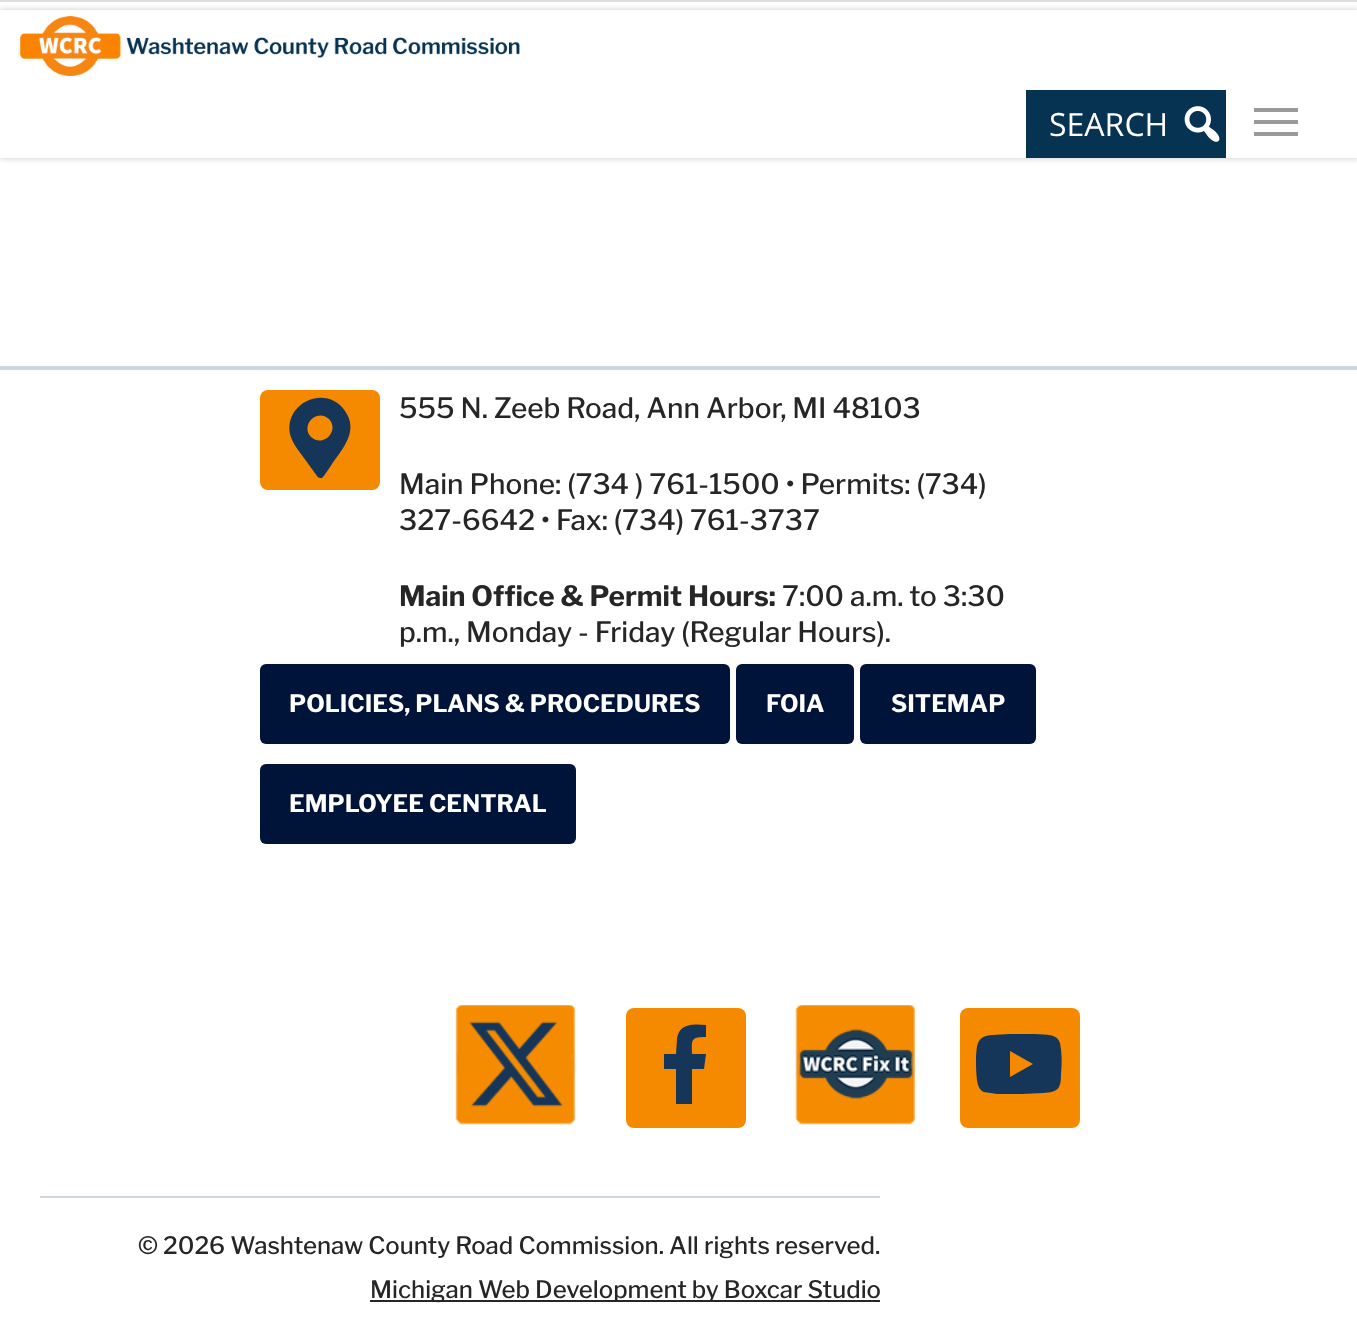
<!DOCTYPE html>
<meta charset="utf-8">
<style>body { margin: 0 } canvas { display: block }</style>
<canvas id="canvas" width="1357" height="1325"></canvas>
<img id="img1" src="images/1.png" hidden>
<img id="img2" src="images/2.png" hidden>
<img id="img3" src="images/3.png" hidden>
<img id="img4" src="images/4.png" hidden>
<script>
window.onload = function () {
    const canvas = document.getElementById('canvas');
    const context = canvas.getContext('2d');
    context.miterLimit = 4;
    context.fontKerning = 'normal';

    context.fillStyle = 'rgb(255, 255, 255)';
    context.fillRect(0, 0, 1357, 1325);
    context.save();
    context.beginPath();
    context.moveTo(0, 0);
    context.lineTo(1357, 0);
    context.lineTo(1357, 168);
    context.lineTo(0, 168);
    context.closePath();
    context.moveTo(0, 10);
    context.lineTo(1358, 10);
    context.lineTo(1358, 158);
    context.lineTo(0, 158);
    context.closePath();
    context.clip('evenodd');
    context.fillStyle = 'rgba(0, 0, 0, 0.22)';
    context.filter = 'blur(3px)';
    context.beginPath();
    context.rect(0, 10, 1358, 148);
    context.fill();
    context.filter = 'none';
    context.restore();
    context.fillStyle = 'rgb(221, 221, 221)';
    context.fillRect(0, 0, 1357, 2);
    context.drawImage(document.getElementById('img1'), 20, 16, 500, 60);
    context.fillStyle = 'rgb(7, 51, 83)';
    context.fillRect(1026, 90, 200, 68);
    context.drawImage(document.getElementById('img2'), 1184, 106, 36, 36);
    context.fillStyle = 'rgb(153, 153, 153)';
    context.fillRect(1254, 108, 44, 4);
    context.fillRect(1254, 132, 44, 4);
    context.fillRect(1254, 120, 44, 4);
    context.fillStyle = 'rgb(208, 215, 222)';
    context.fillRect(0, 366, 1357, 4);
    context.fillStyle = 'rgb(245, 138, 0)';
    context.beginPath();
    context.roundRect(260, 390, 120, 100, 8);
    context.fill();
    context.fillStyle = 'rgb(22, 54, 89)';
    context.beginPath();
    context.moveTo(317, 476);
    context.lineTo(304, 458);
    context.bezierCurveTo(299, 451, 292, 443, 290, 434);
    context.bezierCurveTo(284, 402, 327, 384, 345, 411);
    context.bezierCurveTo(359, 431, 343, 448, 332, 464);
    context.bezierCurveTo(330, 467, 324, 476, 322, 478);
    context.bezierCurveTo(320, 478, 318, 478, 317, 476);
    context.closePath();
    context.moveTo(311, 437);
    context.bezierCurveTo(323, 448, 340, 431, 329, 419);
    context.bezierCurveTo(317, 408, 300, 425, 311, 437);
    context.closePath();
    context.fill();
    context.fillStyle = 'rgb(0, 19, 56)';
    context.beginPath();
    context.roundRect(260, 664, 470, 80, 6);
    context.fill();
    context.beginPath();
    context.roundRect(736, 664, 118, 80, 6);
    context.fill();
    context.beginPath();
    context.roundRect(860, 664, 176, 80, 6);
    context.fill();
    context.beginPath();
    context.roundRect(260, 764, 316, 80, 6);
    context.fill();
    context.drawImage(document.getElementById('img3'), 455, 1005, 121, 120);
    context.fillStyle = 'rgb(245, 138, 0)';
    context.beginPath();
    context.roundRect(626, 1008, 120, 120, 8);
    context.fill();
    context.fillStyle = 'rgb(22, 54, 89)';
    context.beginPath();
    context.moveTo(704, 1069);
    context.lineTo(692, 1069);
    context.lineTo(692, 1104);
    context.lineTo(676, 1104);
    context.lineTo(676, 1069);
    context.lineTo(664, 1069);
    context.lineTo(664, 1054);
    context.lineTo(676, 1054);
    context.lineTo(677, 1039);
    context.bezierCurveTo(679, 1023, 694, 1024, 706, 1025);
    context.lineTo(706, 1037);
    context.bezierCurveTo(690, 1037, 692, 1040, 692, 1054);
    context.lineTo(706, 1054);
    context.closePath();
    context.fill();
    context.drawImage(document.getElementById('img4'), 795, 1005, 121, 120);
    context.fillStyle = 'rgb(245, 138, 0)';
    context.beginPath();
    context.roundRect(960, 1008, 120, 120, 8);
    context.fill();
    context.fillStyle = 'rgb(22, 54, 89)';
    context.beginPath();
    context.moveTo(1060, 1043);
    context.bezierCurveTo(1062, 1053, 1062, 1064, 1061, 1074);
    context.bezierCurveTo(1061, 1089, 1058, 1092, 1043, 1093);
    context.lineTo(1022, 1094);
    context.lineTo(997, 1094);
    context.bezierCurveTo(993, 1093, 988, 1093, 984, 1092);
    context.bezierCurveTo(981, 1091, 979, 1088, 978, 1085);
    context.bezierCurveTo(976, 1077, 976, 1066, 976, 1057);
    context.bezierCurveTo(977, 1044, 977, 1036, 992, 1035);
    context.lineTo(1010, 1034);
    context.lineTo(1036, 1034);
    context.bezierCurveTo(1044, 1035, 1057, 1033, 1060, 1043);
    context.closePath();
    context.moveTo(1010, 1077);
    context.lineTo(1033, 1064);
    context.lineTo(1010, 1051);
    context.closePath();
    context.fill();
    context.fillStyle = 'rgb(208, 215, 222)';
    context.fillRect(40, 1196, 840, 2);
    context.fillStyle = 'rgb(38, 38, 38)';
    context.fillRect(370, 1300, 510, 2);
    context.font = '32px Open Sans';
    context.fillStyle = 'rgb(255, 255, 255)';
    context.fillText('SEARCH', 1049, 136);
    context.font = '500 28px Libre Franklin';
    context.fillStyle = 'rgb(38, 38, 38)';
    context.fillText('555 N. Zeeb Road, Ann Arbor, MI 48103', 399, 418);
    context.fillText('Main Phone: (734 ) 761-1500 • Permits: (734)', 399, 494);
    context.fillText('327-6642 • Fax: (734) 761-3737', 399, 530);
    context.font = 'bold 28px Libre Franklin';
    context.fillText('Main Office & Permit Hours:', 399, 606);
    context.font = '500 28px Libre Franklin';
    context.fillText('7:00 a.m. to 3:30', 782, 606);
    context.fillText('p.m., Monday - Friday (Regular Hours).', 399, 642);
    context.font = 'bold 24px Libre Franklin';
    context.fillStyle = 'rgb(255, 255, 255)';
    context.fillText('POLICIES, PLANS & PROCEDURES', 289, 712);
    context.fillText('FOIA', 766, 712);
    context.fillText('SITEMAP', 891, 712);
    context.fillText('EMPLOYEE CENTRAL', 289, 812);
    context.font = '500 24px Libre Franklin';
    context.fillStyle = 'rgb(38, 38, 38)';
    context.fillText('© 2026 Washtenaw County Road Commission. All rights reserved.', 138, 1254);
    context.fillText('Michigan Web Development by Boxcar Studio', 370, 1298);
};
</script>
